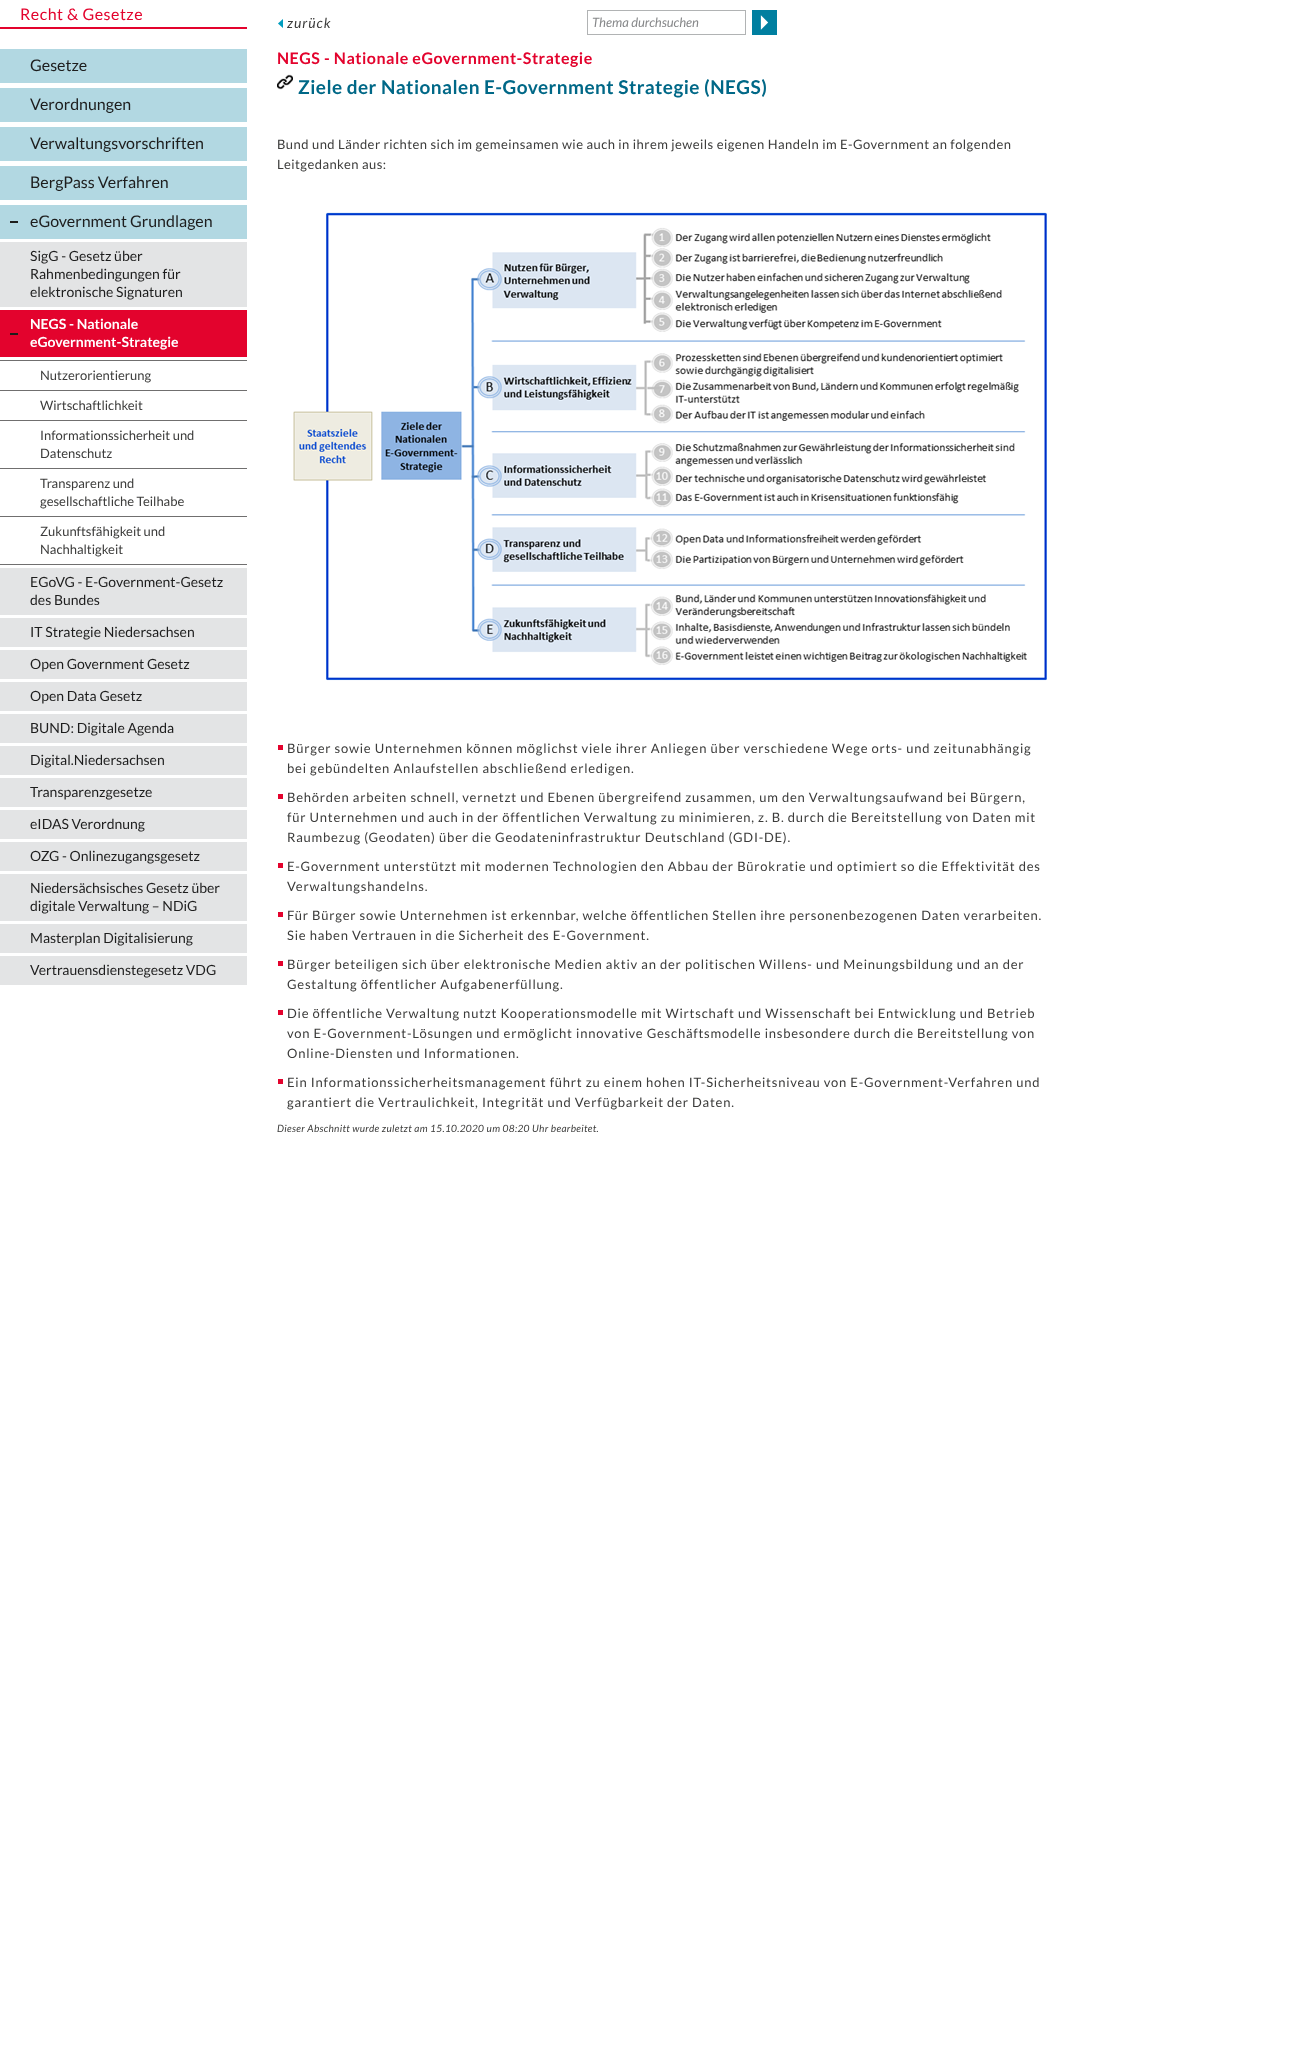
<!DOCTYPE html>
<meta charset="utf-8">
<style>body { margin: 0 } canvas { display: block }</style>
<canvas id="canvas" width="1301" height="2066"></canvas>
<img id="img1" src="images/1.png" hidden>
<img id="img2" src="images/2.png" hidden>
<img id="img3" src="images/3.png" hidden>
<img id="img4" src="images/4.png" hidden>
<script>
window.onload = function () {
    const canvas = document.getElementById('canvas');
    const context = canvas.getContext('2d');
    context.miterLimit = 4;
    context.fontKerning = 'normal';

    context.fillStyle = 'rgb(255, 255, 255)';
    context.fillRect(0, 0, 1301, 2066);
    context.fillStyle = 'rgb(227, 3, 45)';
    context.fillRect(0, 27, 247, 2);
    context.fillStyle = 'rgb(178, 216, 226)';
    context.fillRect(0, 49, 247, 34);
    context.fillRect(0, 88, 247, 34);
    context.fillRect(0, 127, 247, 34);
    context.fillRect(0, 166, 247, 34);
    context.fillRect(0, 205, 247, 34);
    context.fillStyle = 'rgb(29, 29, 27)';
    context.fillRect(10, 221, 8, 2);
    context.fillStyle = 'rgb(227, 228, 229)';
    context.fillRect(0, 242, 247, 65);
    context.fillStyle = 'rgb(227, 3, 45)';
    context.fillRect(0, 310, 247, 47);
    context.fillStyle = 'rgb(29, 29, 27)';
    context.fillRect(10, 333, 8, 2);
    context.fillStyle = 'rgb(112, 111, 111)';
    context.fillRect(0, 360, 247, 1);
    context.fillRect(0, 390, 247, 1);
    context.fillRect(0, 420, 247, 1);
    context.fillRect(0, 468, 247, 1);
    context.fillRect(0, 516, 247, 1);
    context.fillRect(0, 564, 247, 1);
    context.fillStyle = 'rgb(227, 228, 229)';
    context.fillRect(0, 568, 247, 47);
    context.fillRect(0, 618, 247, 29);
    context.fillRect(0, 650, 247, 29);
    context.fillRect(0, 682, 247, 29);
    context.fillRect(0, 714, 247, 29);
    context.fillRect(0, 746, 247, 29);
    context.fillRect(0, 778, 247, 29);
    context.fillRect(0, 810, 247, 29);
    context.fillRect(0, 842, 247, 29);
    context.fillRect(0, 874, 247, 47);
    context.fillRect(0, 924, 247, 29);
    context.fillRect(0, 956, 247, 29);
    context.drawImage(document.getElementById('img1'), 278, 19, 5, 9);
    context.strokeStyle = 'rgb(177, 179, 180)';
    context.strokeRect(587.5, 10.5, 158, 24);
    context.drawImage(document.getElementById('img2'), 752, 10, 25, 25);
    context.drawImage(document.getElementById('img3'), 277, 74, 16, 16);
    context.drawImage(document.getElementById('img4'), 293, 212, 754, 469);
    context.fillStyle = 'rgb(227, 3, 45)';
    context.fillRect(278, 745, 5, 5);
    context.fillRect(278, 794, 5, 5);
    context.fillRect(278, 863, 5, 5);
    context.fillRect(278, 912, 5, 5);
    context.fillRect(278, 961, 5, 5);
    context.fillRect(278, 1010, 5, 5);
    context.fillRect(278, 1079, 5, 5);
    context.letterSpacing = '0.5px';
    context.font = '16px Lato';
    context.fillText('Recht & Gesetze', 20, 20);
    context.letterSpacing = '0px';
    context.fillStyle = 'rgb(29, 29, 29)';
    context.fillText('Gesetze', 30, 71);
    context.fillText('Verordnungen', 30, 110);
    context.fillText('Verwaltungsvorschriften', 30, 149);
    context.fillText('BergPass Verfahren', 30, 188);
    context.fillText('eGovernment Grundlagen', 30, 227);
    context.font = '14px Lato';
    context.fillText('SigG - Gesetz über', 30, 261);
    context.fillText('Rahmenbedingungen für', 30, 279);
    context.fillText('elektronische Signaturen', 30, 297);
    context.font = 'bold 14px Lato';
    context.fillStyle = 'rgb(255, 255, 255)';
    context.fillText('NEGS - Nationale', 30, 329);
    context.fillText('eGovernment-Strategie', 30, 347);
    context.font = '13px Lato';
    context.fillStyle = 'rgb(60, 60, 59)';
    context.fillText('Nutzerorientierung', 40, 380);
    context.fillText('Wirtschaftlichkeit', 40, 410);
    context.fillText('Informationssicherheit und', 40, 440);
    context.fillText('Datenschutz', 40, 458);
    context.fillText('Transparenz und', 40, 488);
    context.fillText('gesellschaftliche Teilhabe', 40, 506);
    context.fillText('Zukunftsfähigkeit und', 40, 536);
    context.fillText('Nachhaltigkeit', 40, 554);
    context.font = '14px Lato';
    context.fillStyle = 'rgb(29, 29, 29)';
    context.fillText('EGoVG - E-Government-Gesetz', 30, 587);
    context.fillText('des Bundes', 30, 605);
    context.fillText('IT Strategie Niedersachsen', 30, 637);
    context.fillText('Open Government Gesetz', 30, 669);
    context.fillText('Open Data Gesetz', 30, 701);
    context.fillText('BUND: Digitale Agenda', 30, 733);
    context.fillText('Digital.Niedersachsen', 30, 765);
    context.fillText('Transparenzgesetze', 30, 797);
    context.fillText('eIDAS Verordnung', 30, 829);
    context.fillText('OZG - Onlinezugangsgesetz', 30, 861);
    context.fillText('Niedersächsisches Gesetz über', 30, 893);
    context.fillText('digitale Verwaltung – NDiG', 30, 911);
    context.fillText('Masterplan Digitalisierung', 30, 943);
    context.fillText('Vertrauensdienstegesetz VDG', 30, 975);
    context.letterSpacing = '1px';
    context.font = 'italic 14px Lato';
    context.fillStyle = 'rgb(60, 60, 59)';
    context.fillText('zurück', 287, 28);
    context.letterSpacing = '0px';
    context.font = 'italic 13px Lato';
    context.fillStyle = 'rgb(135, 136, 138)';
    context.fillText('Thema durchsuchen', 592, 27);
    context.letterSpacing = '0.5px';
    context.font = 'bold 16px Lato';
    context.fillStyle = 'rgb(227, 3, 45)';
    context.fillText('NEGS - Nationale eGovernment-Strategie', 277, 64);
    context.letterSpacing = '0.45px';
    context.font = 'bold 19px Lato';
    context.fillStyle = 'rgb(0, 104, 135)';
    context.fillText('Ziele der Nationalen E-Government Strategie (NEGS)', 298, 94);
    context.letterSpacing = '0.46px';
    context.font = '13px Lato';
    context.fillStyle = 'rgb(60, 60, 59)';
    context.fillText('Bund und Länder richten sich im gemeinsamen wie auch in ihrem jeweils eigenen Handeln im E-Government an folgenden', 277, 149);
    context.fillText('Leitgedanken aus:', 277, 169);
    context.letterSpacing = '0.78px';
    context.fillText('Bürger sowie Unternehmen können möglichst viele ihrer Anliegen über verschiedene Wege orts- und zeitunabhängig', 287, 753);
    context.fillText('bei gebündelten Anlaufstellen abschließend erledigen.', 287, 773);
    context.fillText('Behörden arbeiten schnell, vernetzt und Ebenen übergreifend zusammen, um den Verwaltungsaufwand bei Bürgern,', 287, 802);
    context.fillText('für Unternehmen und auch in der öffentlichen Verwaltung zu minimieren, z. B. durch die Bereitstellung von Daten mit', 287, 822);
    context.fillText('Raumbezug (Geodaten) über die Geodateninfrastruktur Deutschland (GDI-DE).', 287, 842);
    context.fillText('E-Government unterstützt mit modernen Technologien den Abbau der Bürokratie und optimiert so die Effektivität des', 287, 871);
    context.fillText('Verwaltungshandelns.', 287, 891);
    context.fillText('Für Bürger sowie Unternehmen ist erkennbar, welche öffentlichen Stellen ihre personenbezogenen Daten verarbeiten.', 287, 920);
    context.fillText('Sie haben Vertrauen in die Sicherheit des E-Government.', 287, 940);
    context.fillText('Bürger beteiligen sich über elektronische Medien aktiv an der politischen Willens- und Meinungsbildung und an der', 287, 969);
    context.fillText('Gestaltung öffentlicher Aufgabenerfüllung.', 287, 989);
    context.fillText('Die öffentliche Verwaltung nutzt Kooperationsmodelle mit Wirtschaft und Wissenschaft bei Entwicklung und Betrieb', 287, 1018);
    context.fillText('von E-Government-Lösungen und ermöglicht innovative Geschäftsmodelle insbesondere durch die Bereitstellung von', 287, 1038);
    context.fillText('Online-Diensten und Informationen.', 287, 1058);
    context.fillText('Ein Informationssicherheitsmanagement führt zu einem hohen IT-Sicherheitsniveau von E-Government-Verfahren und', 287, 1087);
    context.fillText('garantiert die Vertraulichkeit, Integrität und Verfügbarkeit der Daten.', 287, 1107);
    context.letterSpacing = '0.35px';
    context.font = 'italic 10px Lato';
    context.fillText('Dieser Abschnitt wurde zuletzt am 15.10.2020 um 08:20 Uhr bearbeitet.', 277, 1132);
};
</script>
